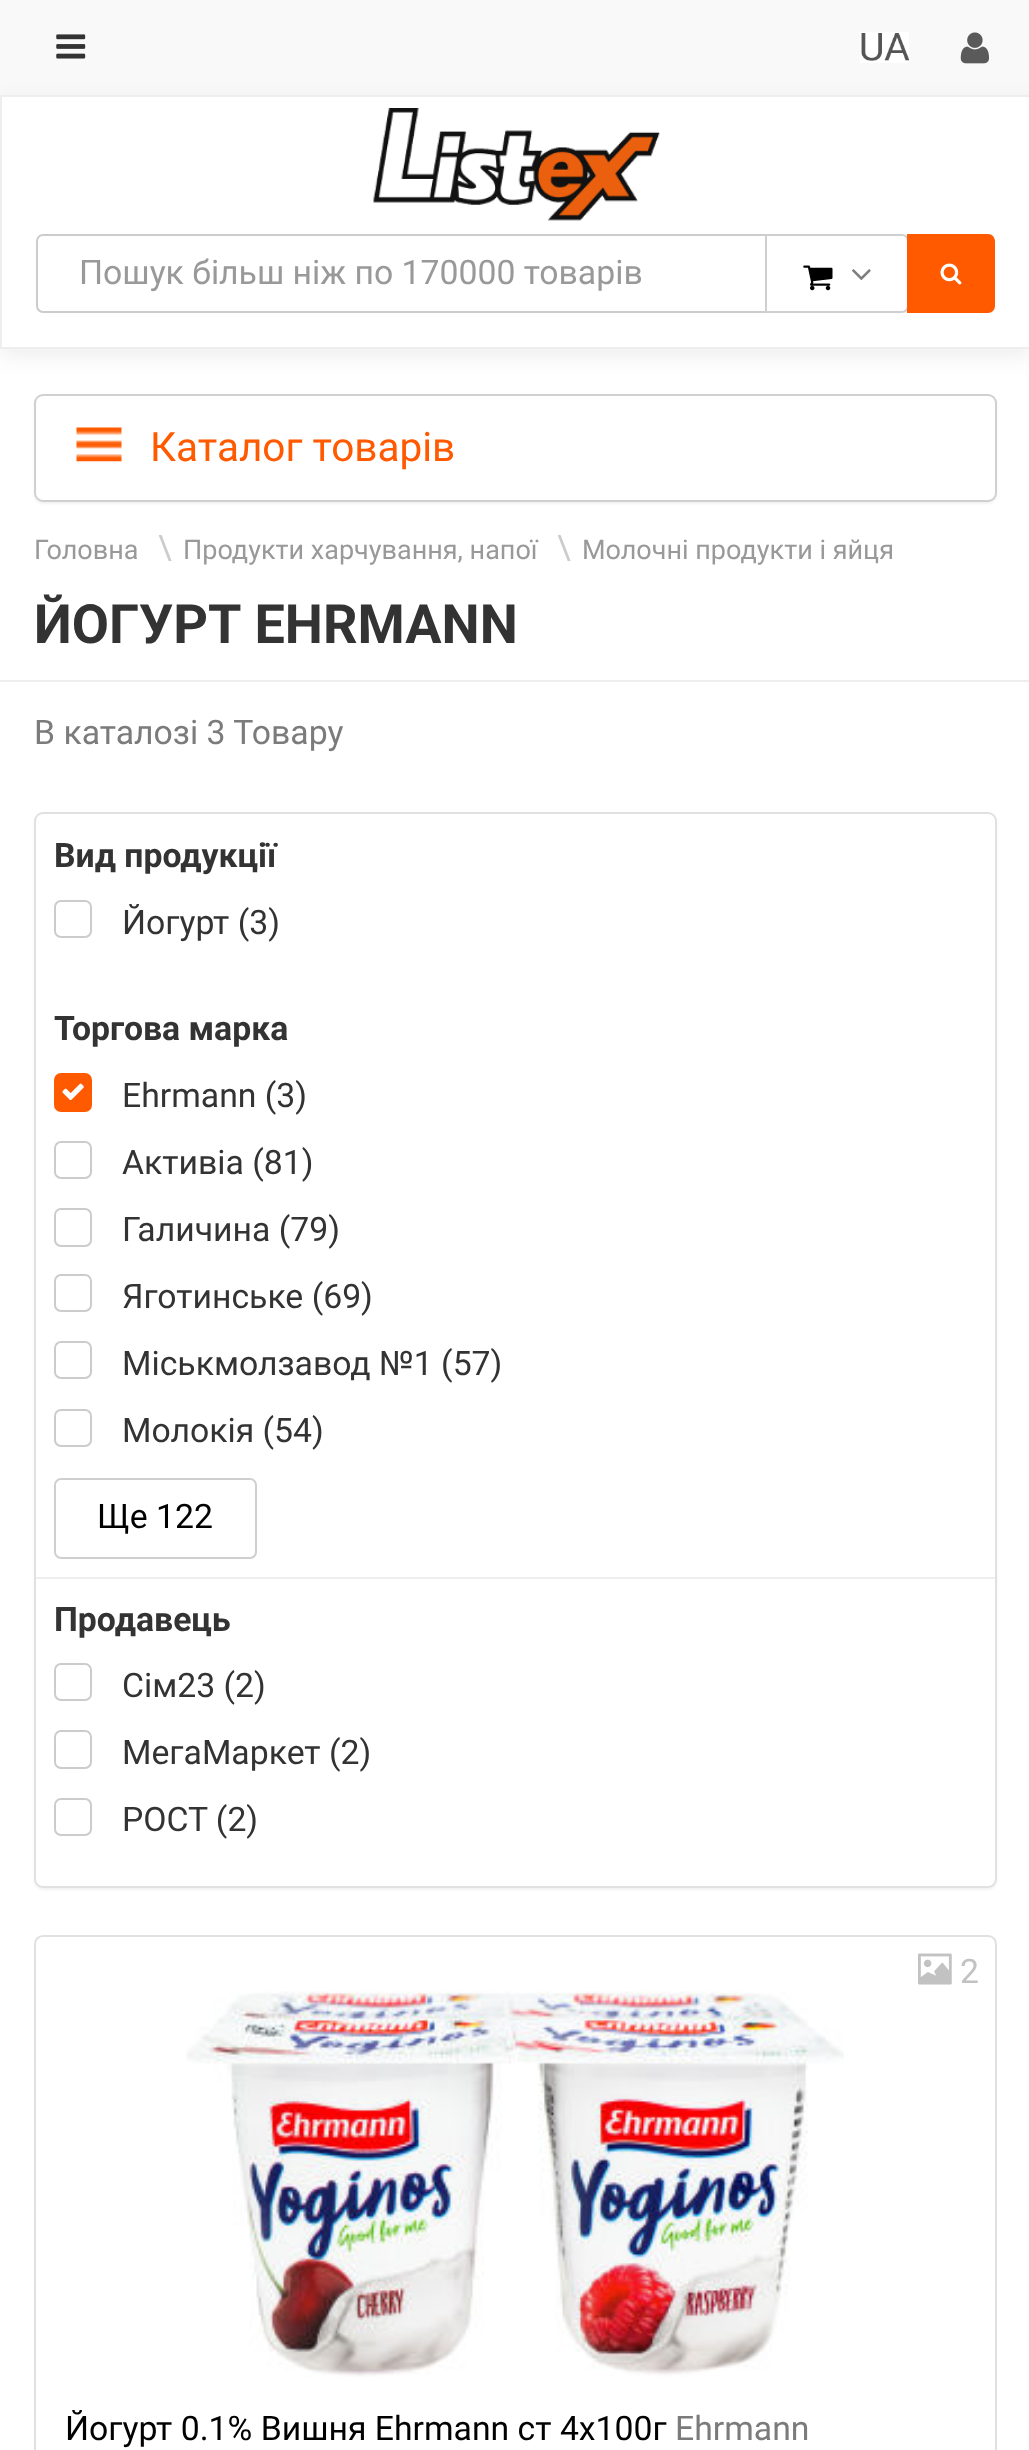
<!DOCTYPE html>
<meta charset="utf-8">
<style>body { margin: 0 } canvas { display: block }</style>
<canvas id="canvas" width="1029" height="2450"></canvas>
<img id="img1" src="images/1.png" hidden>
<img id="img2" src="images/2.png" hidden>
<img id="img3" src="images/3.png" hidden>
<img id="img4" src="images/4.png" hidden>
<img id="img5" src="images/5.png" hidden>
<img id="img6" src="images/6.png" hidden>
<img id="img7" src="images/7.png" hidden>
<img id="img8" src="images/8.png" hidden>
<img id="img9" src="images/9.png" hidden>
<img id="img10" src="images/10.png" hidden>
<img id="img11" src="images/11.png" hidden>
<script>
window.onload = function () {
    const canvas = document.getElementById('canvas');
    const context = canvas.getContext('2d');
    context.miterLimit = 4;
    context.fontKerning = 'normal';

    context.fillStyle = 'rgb(255, 255, 255)';
    context.fillRect(0, 0, 1029, 2450);
    context.fillStyle = 'rgb(249, 249, 249)';
    context.fillRect(0, 0, 1029, 95);
    context.drawImage(document.getElementById('img1'), 56, 34, 30, 25);
    context.drawImage(document.getElementById('img2'), 860, 32, 49, 31);
    context.drawImage(document.getElementById('img3'), 960, 32, 29, 32);
    context.fillStyle = 'rgba(0, 0, 0, 0.07)';
    context.filter = 'blur(11px)';
    context.beginPath();
    context.rect(0, 101, 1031, 255);
    context.fill();
    context.filter = 'none';
    context.fillStyle = 'rgb(255, 255, 255)';
    context.beginPath();
    context.rect(1, 96, 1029, 252);
    context.fill();
    context.strokeStyle = 'rgb(238, 238, 238)';
    context.lineWidth = 2;
    context.stroke();
    context.drawImage(document.getElementById('img4'), 373, 108, 287, 113);
    context.beginPath();
    context.roundRect(37, 235, 736, 77, [6, 0, 0, 6]);
    context.strokeStyle = 'rgb(204, 204, 204)';
    context.stroke();
    context.beginPath();
    context.roundRect(766, 235, 142, 77, [0, 6, 6, 0]);
    context.fill();
    context.strokeStyle = 'rgb(207, 207, 207)';
    context.stroke();
    context.drawImage(document.getElementById('img5'), 803, 265, 30, 26);
    context.drawImage(document.getElementById('img6'), 852, 269, 19, 11);
    context.fillStyle = 'rgb(255, 90, 0)';
    context.beginPath();
    context.roundRect(908, 235, 86, 77, [0, 6, 6, 0]);
    context.fill();
    context.strokeStyle = 'rgb(255, 90, 0)';
    context.stroke();
    context.drawImage(document.getElementById('img7'), 940, 263, 22, 22);
    context.fillStyle = 'rgba(0, 0, 0, 0.05)';
    context.filter = 'blur(1px)';
    context.beginPath();
    context.roundRect(34, 396, 963, 108, 9);
    context.fill();
    context.filter = 'none';
    context.fillStyle = 'rgb(255, 255, 255)';
    context.beginPath();
    context.roundRect(35, 395, 961, 106, 8);
    context.fill();
    context.strokeStyle = 'rgb(208, 208, 208)';
    context.stroke();
    context.drawImage(document.getElementById('img8'), 76, 427, 46, 35);
    context.fillStyle = 'rgb(238, 238, 238)';
    context.fillRect(0, 680, 1029, 2);
    context.fillStyle = 'rgba(0, 0, 0, 0.05)';
    context.filter = 'blur(1px)';
    context.beginPath();
    context.roundRect(34, 815, 963, 1075, 9);
    context.fill();
    context.filter = 'none';
    context.fillStyle = 'rgb(255, 255, 255)';
    context.beginPath();
    context.roundRect(35, 813, 961, 1074, 8);
    context.fill();
    context.strokeStyle = 'rgb(225, 225, 225)';
    context.stroke();
    context.beginPath();
    context.roundRect(55, 901, 36, 36, 6);
    context.strokeStyle = 'rgb(204, 204, 204)';
    context.stroke();
    context.fillStyle = 'rgb(255, 90, 0)';
    context.beginPath();
    context.roundRect(55, 1074, 36, 37, 6);
    context.fill();
    context.strokeStyle = 'rgb(255, 90, 0)';
    context.stroke();
    context.drawImage(document.getElementById('img9'), 62, 1083, 22, 17);
    context.beginPath();
    context.roundRect(55, 1142, 36, 36, 6);
    context.strokeStyle = 'rgb(204, 204, 204)';
    context.stroke();
    context.beginPath();
    context.roundRect(55, 1209, 36, 37, 6);
    context.stroke();
    context.beginPath();
    context.roundRect(55, 1275, 36, 36, 6);
    context.stroke();
    context.beginPath();
    context.roundRect(55, 1342, 36, 36, 6);
    context.stroke();
    context.beginPath();
    context.roundRect(55, 1410, 36, 36, 6);
    context.stroke();
    context.beginPath();
    context.roundRect(55, 1479, 201, 79, 6);
    context.strokeStyle = 'rgb(207, 207, 207)';
    context.stroke();
    context.fillStyle = 'rgb(238, 238, 238)';
    context.fillRect(36, 1577, 959, 2);
    context.beginPath();
    context.roundRect(55, 1664, 36, 36, 6);
    context.strokeStyle = 'rgb(204, 204, 204)';
    context.stroke();
    context.beginPath();
    context.roundRect(55, 1731, 36, 37, 6);
    context.stroke();
    context.beginPath();
    context.roundRect(55, 1799, 36, 36, 6);
    context.stroke();
    context.beginPath();
    context.moveTo(43, 1936);
    context.lineTo(988, 1936);
    context.bezierCurveTo(992.5, 1936, 996, 1939.5, 996, 1944);
    context.lineTo(996, 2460);
    context.lineTo(35, 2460);
    context.lineTo(35, 1944);
    context.bezierCurveTo(35, 1939.5, 38.5, 1936, 43, 1936);
    context.closePath();
    context.strokeStyle = 'rgb(225, 225, 225)';
    context.stroke();
    context.drawImage(document.getElementById('img10'), 918, 1953, 34, 32);
    context.drawImage(document.getElementById('img11'), 186, 1991, 658, 386);
    context.font = '33.75px Roboto';
    context.fillStyle = 'rgb(153, 153, 153)';
    context.fillText('Пошук більш ніж по 170000 товарів', 79, 284);
    context.font = '40.5px Roboto';
    context.fillStyle = 'rgb(255, 90, 0)';
    context.fillText('Каталог товарів', 150, 461);
    context.font = '27px Roboto';
    context.fillStyle = 'rgb(153, 153, 153)';
    context.fillText('Головна', 34, 559);
    context.font = '33.75px Roboto';
    context.fillStyle = 'rgb(204, 204, 204)';
    context.fillText('\\', 158, 559);
    context.font = '27px Roboto';
    context.fillStyle = 'rgb(153, 153, 153)';
    context.fillText('Продукти харчування, напої', 183, 559);
    context.font = '33.75px Roboto';
    context.fillStyle = 'rgb(204, 204, 204)';
    context.fillText('\\', 557, 559);
    context.font = '27px Roboto';
    context.fillStyle = 'rgb(153, 153, 153)';
    context.fillText('Молочні продукти і яйця', 582, 559);
    context.wordSpacing = '1px';
    context.font = 'bold 54px Roboto';
    context.fillStyle = 'rgb(51, 51, 51)';
    context.fillText('ЙОГУРТ EHRMANN', 34, 643);
    context.wordSpacing = '0px';
    context.font = '33.75px Roboto';
    context.fillStyle = 'rgb(123, 123, 123)';
    context.fillText('В каталозі 3 Товару', 34, 744);
    context.font = 'bold 33.75px Roboto';
    context.fillStyle = 'rgb(51, 51, 51)';
    context.fillText('Вид продукції', 54, 867);
    context.font = '33.75px Roboto';
    context.fillText('Йогурт (3)', 122, 934);
    context.font = 'bold 33.75px Roboto';
    context.fillText('Торгова марка', 54, 1040);
    context.font = '33.75px Roboto';
    context.fillText('Ehrmann (3)', 122, 1107);
    context.fillText('Активіа (81)', 122, 1174);
    context.fillText('Галичина (79)', 122, 1241);
    context.fillText('Яготинське (69)', 122, 1308);
    context.fillText('Міськмолзавод №1 (57)', 122, 1375);
    context.fillText('Молокія (54)', 122, 1442);
    context.fillStyle = 'rgb(0, 0, 0)';
    context.fillText('Ще 122', 97, 1528);
    context.font = 'bold 33.75px Roboto';
    context.fillStyle = 'rgb(51, 51, 51)';
    context.fillText('Продавець', 54, 1631);
    context.font = '33.75px Roboto';
    context.fillText('Сім23 (2)', 122, 1697);
    context.fillText('МегаМаркет (2)', 122, 1764);
    context.fillText('РОСТ (2)', 122, 1831);
    context.fillStyle = 'rgb(194, 194, 194)';
    context.fillText('2', 960, 1983);
    context.fillStyle = 'rgb(0, 0, 0)';
    context.fillText('Йогурт 0.1% Вишня Ehrmann ст 4х100г', 65, 2440);
    context.fillStyle = 'rgb(123, 123, 123)';
    context.fillText('Ehrmann', 675, 2440);
};
</script>
